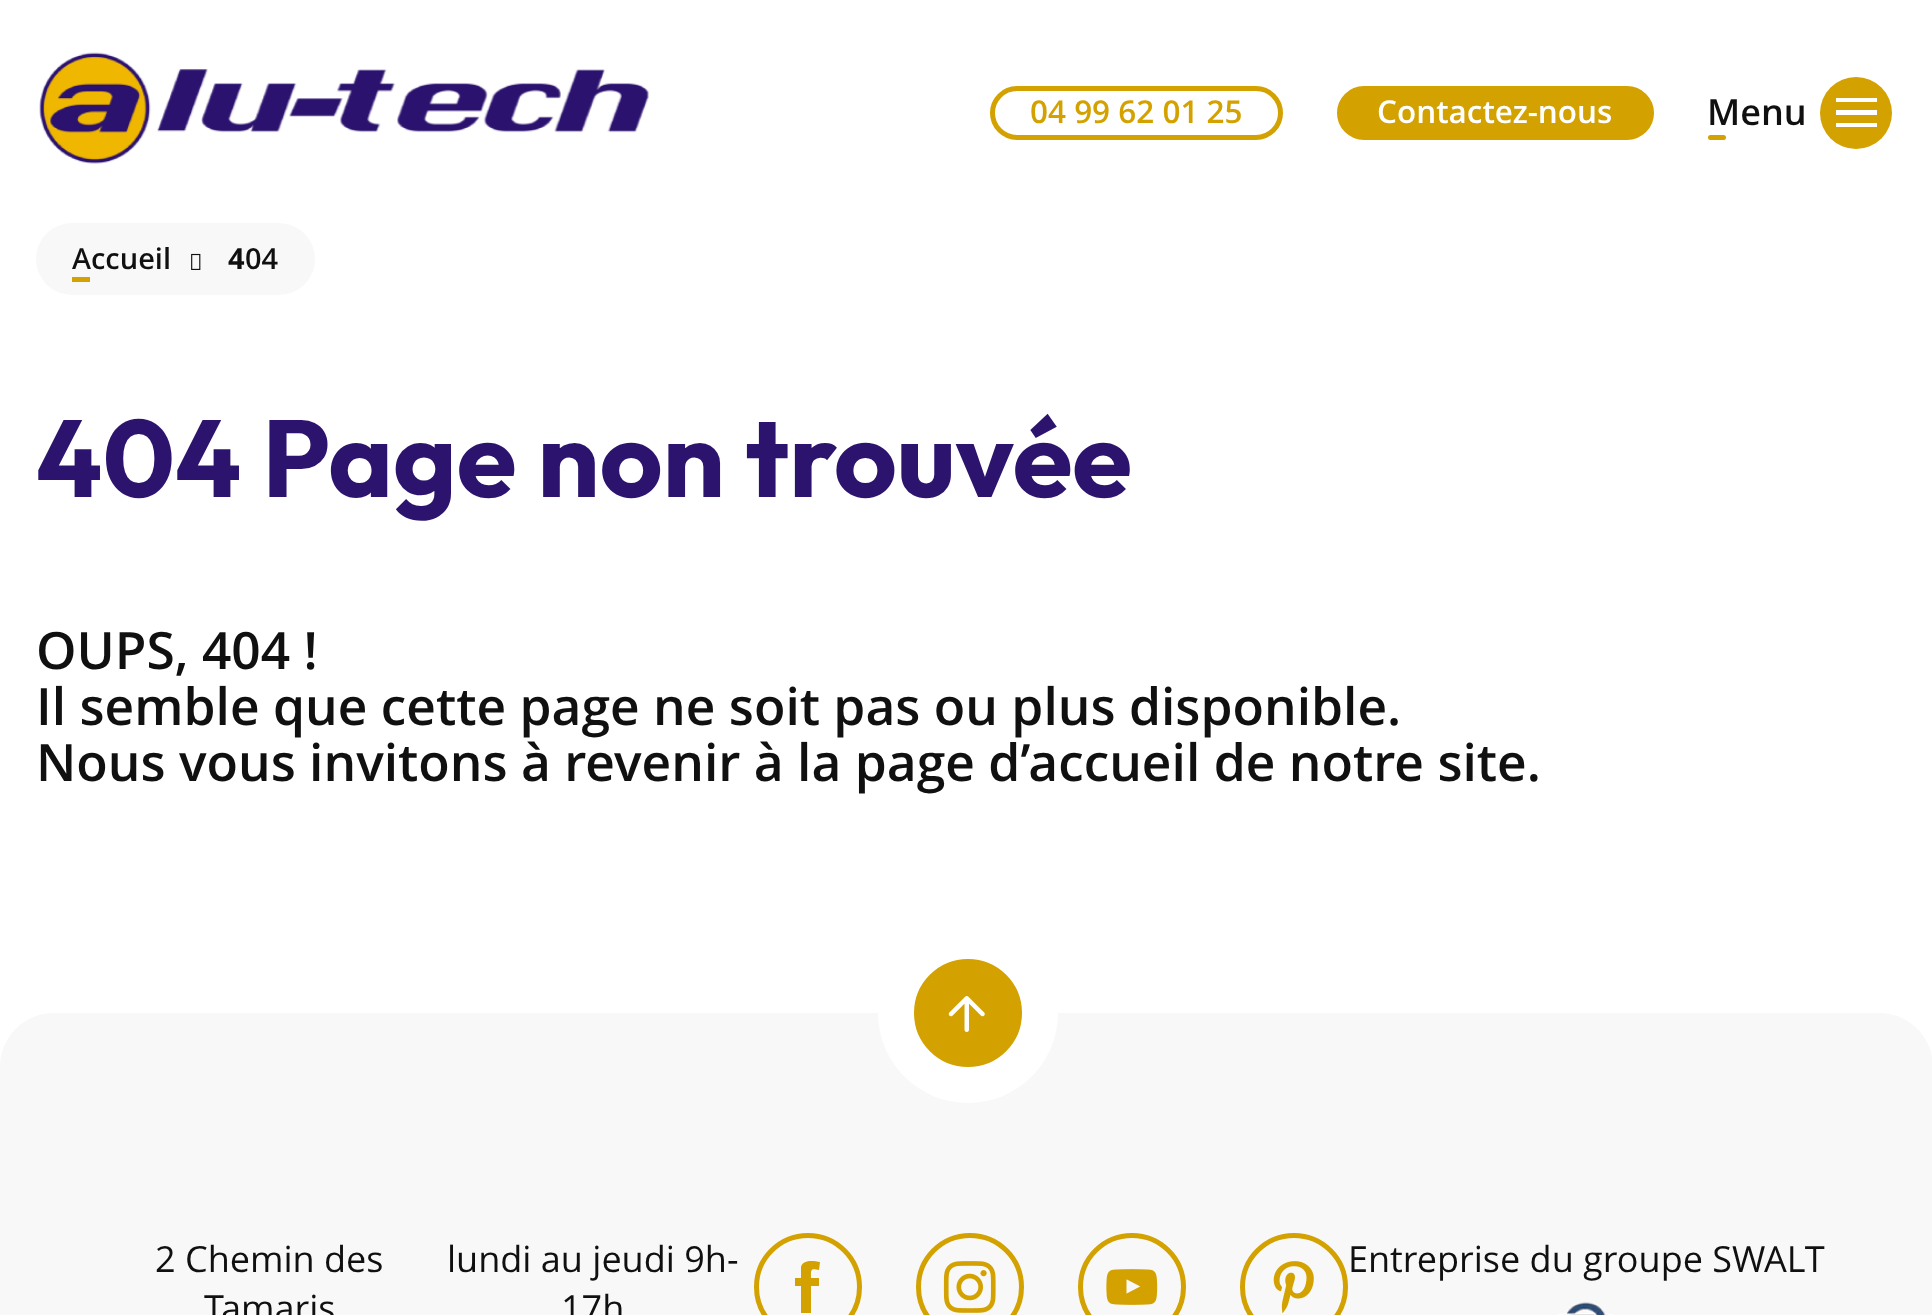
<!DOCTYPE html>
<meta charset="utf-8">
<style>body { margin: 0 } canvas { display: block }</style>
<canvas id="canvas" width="1932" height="1315"></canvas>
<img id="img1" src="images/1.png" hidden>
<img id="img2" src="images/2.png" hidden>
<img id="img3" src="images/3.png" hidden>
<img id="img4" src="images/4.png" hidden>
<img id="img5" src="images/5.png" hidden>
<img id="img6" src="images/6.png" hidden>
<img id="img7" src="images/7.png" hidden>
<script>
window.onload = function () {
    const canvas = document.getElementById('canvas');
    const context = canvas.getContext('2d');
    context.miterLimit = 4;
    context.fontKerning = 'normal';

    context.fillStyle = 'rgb(255, 255, 255)';
    context.fillRect(0, 0, 1932, 1315);
    context.drawImage(document.getElementById('img1'), 39, 52, 610, 112);
    context.beginPath();
    context.roundRect(992.5, 88.5, 288, 49, 24.5);
    context.strokeStyle = 'rgb(211, 161, 0)';
    context.lineWidth = 5;
    context.stroke();
    context.fillStyle = 'rgb(211, 161, 0)';
    context.beginPath();
    context.roundRect(1339.5, 88.5, 312, 49, 24.5);
    context.fill();
    context.stroke();
    context.beginPath();
    context.arc(1856, 113, 36, 0, 2 * Math.PI);
    context.fill();
    context.beginPath();
    context.roundRect(1708, 135, 18, 5, 2.5);
    context.fill();
    context.fillStyle = 'rgb(255, 255, 255)';
    context.fillRect(1836, 98, 41, 4);
    context.fillRect(1836, 110, 41, 5);
    context.fillRect(1836, 123, 41, 4);
    context.fillStyle = 'rgb(248, 248, 248)';
    context.beginPath();
    context.roundRect(36, 223, 279, 72, 36);
    context.fill();
    context.fillStyle = 'rgb(211, 161, 0)';
    context.fillRect(72, 277, 18, 5);
    context.drawImage(document.getElementById('img2'), 191, 253, 10, 17);
    context.fillStyle = 'rgb(248, 248, 248)';
    context.beginPath();
    context.moveTo(54, 1013);
    context.lineTo(1879, 1013);
    context.bezierCurveTo(1909, 1013, 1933, 1037, 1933, 1067);
    context.lineTo(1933, 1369);
    context.lineTo(0, 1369);
    context.lineTo(0, 1067);
    context.bezierCurveTo(0, 1037, 24, 1013, 54, 1013);
    context.closePath();
    context.fill();
    context.fillStyle = 'rgb(255, 255, 255)';
    context.beginPath();
    context.arc(968, 1013, 90, 0, 2 * Math.PI);
    context.fill();
    context.fillStyle = 'rgb(211, 161, 0)';
    context.beginPath();
    context.arc(968, 1013, 51.5, 0, 2 * Math.PI);
    context.fill();
    context.stroke();
    context.drawImage(document.getElementById('img3'), 948, 996, 37, 36);
    context.beginPath();
    context.arc(808, 1287, 51.5, 0, 2 * Math.PI);
    context.stroke();
    context.beginPath();
    context.moveTo(811, 1313);
    context.lineTo(811, 1286);
    context.lineTo(819, 1286);
    context.lineTo(819, 1278);
    context.lineTo(811, 1278);
    context.bezierCurveTo(811, 1270, 810, 1268, 819, 1270);
    context.lineTo(820, 1262);
    context.bezierCurveTo(814, 1261, 803, 1259, 801, 1267);
    context.lineTo(801, 1278);
    context.lineTo(795, 1278);
    context.lineTo(795, 1286);
    context.lineTo(801, 1286);
    context.lineTo(801, 1313);
    context.closePath();
    context.fill();
    context.beginPath();
    context.arc(970, 1287, 51.5, 0, 2 * Math.PI);
    context.stroke();
    context.drawImage(document.getElementById('img4'), 943, 1261, 53, 52);
    context.beginPath();
    context.arc(1132, 1287, 51.5, 0, 2 * Math.PI);
    context.stroke();
    context.drawImage(document.getElementById('img5'), 1106, 1269, 52, 36);
    context.beginPath();
    context.arc(1294, 1287, 51.5, 0, 2 * Math.PI);
    context.stroke();
    context.drawImage(document.getElementById('img6'), 1273, 1261, 41, 52);
    context.drawImage(document.getElementById('img7'), 1557, 1302, 57, 13);
    context.font = '600 31.5px Open Sans';
    context.fillText('04 99 62 01 25', 1030, 123);
    context.fillStyle = 'rgb(255, 255, 255)';
    context.fillText('Contactez-nous', 1377, 123);
    context.font = '600 36px Open Sans';
    context.fillStyle = 'rgb(16, 16, 16)';
    context.fillText('Menu', 1707, 125);
    context.font = '500 29px Noto Sans';
    context.fillText('A', 72, 269);
    context.font = '600 29px Open Sans';
    context.fillText('ccueil', 91, 269);
    context.font = 'bold 29px Noto Sans';
    context.fillText('4', 228, 269);
    context.font = '600 29px Open Sans';
    context.fillText('04', 245, 269);
    context.font = 'bold 109px Outfit';
    context.fillStyle = 'rgb(44, 19, 109)';
    context.fillText('404 Page non trouvée', 36, 497);
    context.font = '600 51.5px Open Sans';
    context.fillStyle = 'rgb(16, 16, 16)';
    context.fillText('OUPS, 404 !', 36, 669);
    context.fillText('Il semble que cette page ne soit pas ou plus disponible.', 36, 725);
    context.fillText('Nous vous invitons à revenir à la page d’accueil de notre site.', 36, 781);
    context.font = '36px Open Sans';
    context.fillText('2 Chemin des', 155, 1272);
    context.fillText('Tamaris', 204, 1321);
    context.fillText('lundi au jeudi 9h-', 447, 1272);
    context.fillText('17h', 561, 1321);
    context.fillText('Entreprise du groupe SWALT', 1348, 1272);
};
</script>
